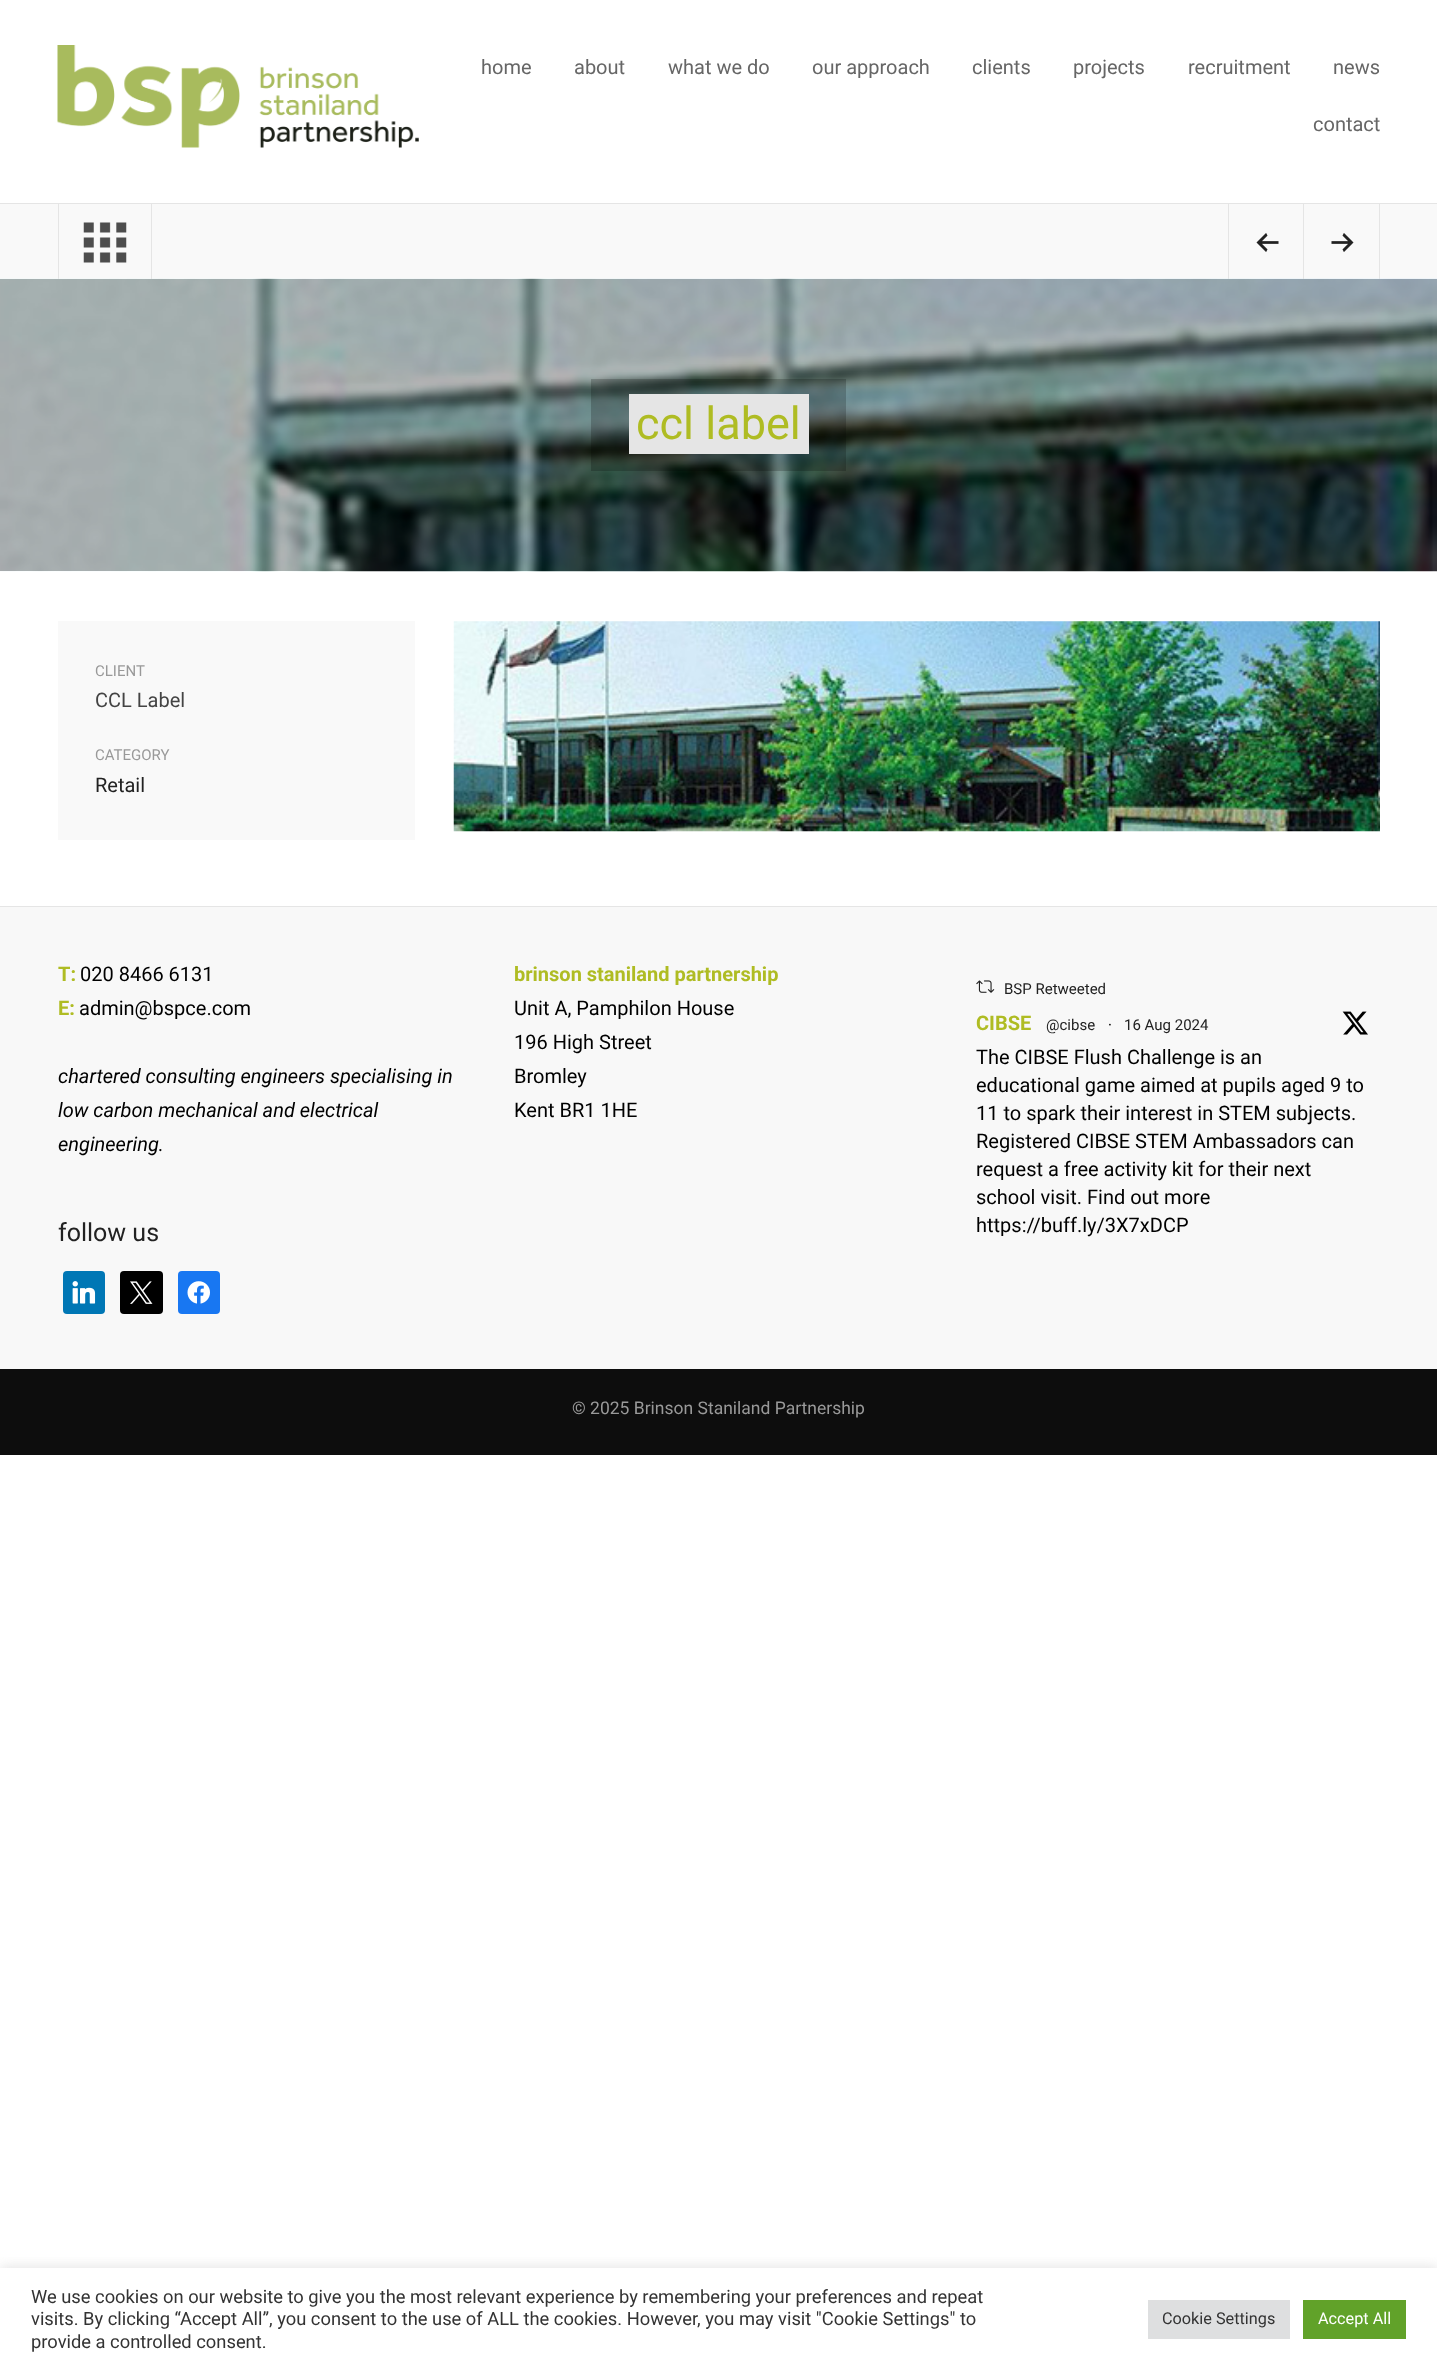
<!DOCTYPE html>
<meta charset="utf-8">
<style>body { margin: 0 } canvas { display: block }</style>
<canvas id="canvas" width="1437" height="2369"></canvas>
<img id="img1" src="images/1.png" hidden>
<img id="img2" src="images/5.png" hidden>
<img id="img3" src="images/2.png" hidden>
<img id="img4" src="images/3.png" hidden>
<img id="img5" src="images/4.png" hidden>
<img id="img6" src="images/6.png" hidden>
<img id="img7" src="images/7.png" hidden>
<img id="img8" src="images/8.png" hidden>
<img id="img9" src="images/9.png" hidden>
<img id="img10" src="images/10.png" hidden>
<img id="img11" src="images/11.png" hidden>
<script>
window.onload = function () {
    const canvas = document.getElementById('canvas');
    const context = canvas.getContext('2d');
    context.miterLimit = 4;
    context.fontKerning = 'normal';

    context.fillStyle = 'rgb(255, 255, 255)';
    context.fillRect(0, 0, 1437, 2369);
    context.drawImage(document.getElementById('img1'), 57, 45, 362, 103);
    context.fillStyle = 'rgb(249, 249, 249)';
    context.fillRect(0, 204, 1437, 75);
    context.fillStyle = 'rgb(229, 229, 229)';
    context.fillRect(0, 203, 1437, 1);
    context.fillRect(1379, 204, 1, 75);
    context.fillRect(58, 204, 1, 75);
    context.fillRect(1228, 204, 1, 75);
    context.drawImage(document.getElementById('img2'), 0, 278, 1437, 294);
    context.fillRect(151, 204, 1, 75);
    context.drawImage(document.getElementById('img3'), 83, 222, 44, 41);
    context.drawImage(document.getElementById('img4'), 1256, 233, 23, 19);
    context.fillRect(1303, 204, 1, 75);
    context.drawImage(document.getElementById('img5'), 1331, 233, 23, 19);
    context.fillStyle = 'rgba(0, 0, 0, 0.2)';
    context.fillRect(591, 379, 255, 92);
    context.fillStyle = 'rgb(229, 229, 229)';
    context.fillRect(629, 394, 180, 60);
    context.fillStyle = 'rgb(249, 249, 249)';
    context.fillRect(58, 621, 357, 219);
    context.drawImage(document.getElementById('img6'), 453, 621, 927, 211);
    context.fillStyle = 'rgb(248, 248, 248)';
    context.fillRect(0, 907, 1437, 462);
    context.fillStyle = 'rgb(229, 229, 229)';
    context.fillRect(0, 906, 1437, 1);
    context.fillStyle = 'rgb(0, 119, 181)';
    context.beginPath();
    context.roundRect(63, 1271, 42, 43, 4);
    context.fill();
    context.drawImage(document.getElementById('img7'), 72, 1281, 24, 23);
    context.fillStyle = 'rgb(0, 0, 0)';
    context.beginPath();
    context.roundRect(120, 1271, 43, 43, 4);
    context.fill();
    context.drawImage(document.getElementById('img8'), 130, 1281, 23, 23);
    context.fillStyle = 'rgb(24, 119, 242)';
    context.beginPath();
    context.roundRect(178, 1271, 42, 43, 4);
    context.fill();
    context.drawImage(document.getElementById('img9'), 187, 1281, 23, 23);
    context.drawImage(document.getElementById('img10'), 976, 980, 19, 13);
    context.drawImage(document.getElementById('img11'), 1342, 1011, 26, 24);
    context.fillStyle = 'rgb(13, 13, 13)';
    context.fillRect(0, 1369, 1437, 86);
    context.save();
    context.beginPath();
    context.rect(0, 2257, 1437, 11);
    context.clip();
    context.fillStyle = 'rgba(172, 171, 171, 0.3)';
    context.filter = 'blur(6px)';
    context.beginPath();
    context.rect(0, 2266, 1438, 103);
    context.fill();
    context.filter = 'none';
    context.restore();
    context.fillStyle = 'rgb(222, 223, 224)';
    context.fillRect(1148, 2300, 142, 39);
    context.fillStyle = 'rgb(97, 162, 41)';
    context.fillRect(1303, 2300, 103, 39);
    context.font = '20px Roboto';
    context.fillStyle = 'rgb(102, 102, 102)';
    context.fillText('home', 481, 74);
    context.fillText('about', 574, 74);
    context.fillText('what we do', 668, 74);
    context.fillText('our approach', 812, 74);
    context.fillText('clients', 972, 74);
    context.fillText('projects', 1073, 74);
    context.fillText('recruitment', 1188, 74);
    context.fillText('news', 1333, 74);
    context.fillText('contact', 1313, 131);
    context.font = '45px Roboto';
    context.fillStyle = 'rgb(175, 188, 35)';
    context.fillText('ccl label', 636, 439);
    context.font = '15px Roboto';
    context.fillStyle = 'rgb(153, 153, 153)';
    context.fillText('CLIENT', 95, 676);
    context.font = '20px Roboto';
    context.fillStyle = 'rgb(68, 68, 68)';
    context.fillText('CCL Label', 95, 707);
    context.font = '15px Roboto';
    context.fillStyle = 'rgb(153, 153, 153)';
    context.fillText('CATEGORY', 95, 760);
    context.font = '20px Roboto';
    context.fillStyle = 'rgb(34, 34, 34)';
    context.fillText('Retail', 95, 792);
    context.font = 'bold 20px Roboto';
    context.fillStyle = 'rgb(175, 188, 35)';
    context.fillText('T:', 58, 981);
    context.font = '20px Roboto';
    context.fillStyle = 'rgb(0, 0, 0)';
    context.fillText('020 8466 6131', 80, 981);
    context.font = 'bold 20px Roboto';
    context.fillStyle = 'rgb(175, 188, 35)';
    context.fillText('E:', 58, 1015);
    context.font = '20px Roboto';
    context.fillStyle = 'rgb(0, 0, 0)';
    context.fillText('admin@bspce.com', 79, 1015);
    context.font = 'italic 20px Roboto';
    context.fillText('chartered consulting engineers specialising in', 58, 1083);
    context.fillText('low carbon mechanical and electrical', 58, 1117);
    context.fillText('engineering.', 58, 1151);
    context.font = '25px Roboto';
    context.fillStyle = 'rgb(34, 34, 34)';
    context.fillText('follow us', 58, 1241);
    context.font = 'bold 20px Roboto';
    context.fillStyle = 'rgb(175, 188, 35)';
    context.fillText('brinson staniland partnership', 514, 981);
    context.font = '20px Roboto';
    context.fillStyle = 'rgb(0, 0, 0)';
    context.fillText('Unit A, Pamphilon House', 514, 1015);
    context.fillText('196 High Street', 514, 1049);
    context.fillText('Bromley', 514, 1083);
    context.fillText('Kent BR1 1HE', 514, 1117);
    context.font = '15px Roboto';
    context.fillStyle = 'rgb(34, 34, 34)';
    context.fillText('BSP Retweeted', 1004, 994);
    context.font = 'bold 20px Roboto';
    context.fillStyle = 'rgb(175, 188, 35)';
    context.fillText('CIBSE', 976, 1030);
    context.font = '15px Roboto';
    context.fillStyle = 'rgb(34, 34, 34)';
    context.fillText('@cibse', 1046, 1030);
    context.fillStyle = 'rgb(0, 0, 0)';
    context.fillText('·', 1108, 1030);
    context.fillStyle = 'rgb(34, 34, 34)';
    context.fillText('16 Aug 2024', 1124, 1030);
    context.font = '20px Roboto';
    context.fillStyle = 'rgb(0, 0, 0)';
    context.fillText('The CIBSE Flush Challenge is an', 976, 1064);
    context.fillText('educational game aimed at pupils aged 9 to', 976, 1092);
    context.fillText('11 to spark their interest in STEM subjects.', 976, 1120);
    context.fillText('Registered CIBSE STEM Ambassadors can', 976, 1148);
    context.fillText('request a free activity kit for their next', 976, 1176);
    context.fillText('school visit. Find out more', 976, 1204);
    context.fillText('https://buff.ly/3X7xDCP', 976, 1232);
    context.font = '17.5px Roboto';
    context.fillStyle = 'rgb(153, 153, 153)';
    context.fillText('© 2025 Brinson Staniland Partnership', 572, 1414);
    context.font = '18.33px Roboto';
    context.fillStyle = 'rgb(51, 51, 51)';
    context.fillText('We use cookies on our website to give you the most relevant experience by remembering your preferences and repeat', 31, 2303);
    context.fillText('visits. By clicking “Accept All”, you consent to the use of ALL the cookies. However, you may visit "Cookie Settings" to', 31, 2325);
    context.fillText('provide a controlled consent.', 31, 2348);
    context.font = '16.25px Roboto';
    context.fillText('Cookie Settings', 1162, 2324);
    context.fillStyle = 'rgb(255, 255, 255)';
    context.fillText('Accept All', 1318, 2324);
};
</script>
